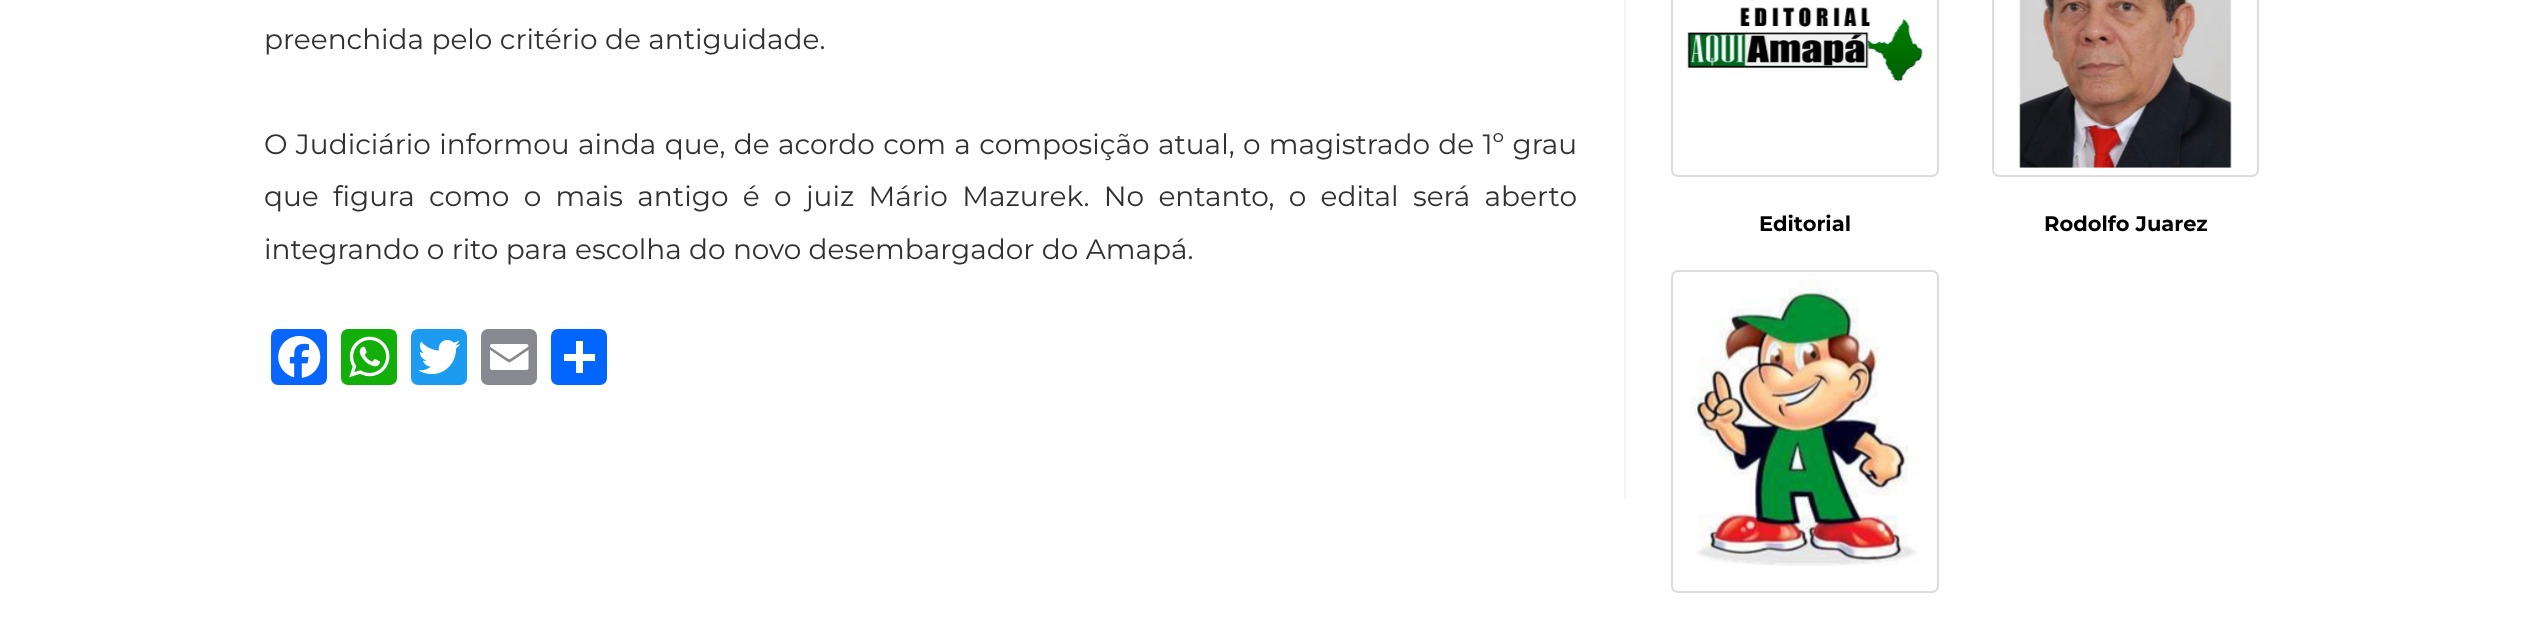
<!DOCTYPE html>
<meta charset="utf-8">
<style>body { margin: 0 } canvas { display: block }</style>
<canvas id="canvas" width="2523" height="638"></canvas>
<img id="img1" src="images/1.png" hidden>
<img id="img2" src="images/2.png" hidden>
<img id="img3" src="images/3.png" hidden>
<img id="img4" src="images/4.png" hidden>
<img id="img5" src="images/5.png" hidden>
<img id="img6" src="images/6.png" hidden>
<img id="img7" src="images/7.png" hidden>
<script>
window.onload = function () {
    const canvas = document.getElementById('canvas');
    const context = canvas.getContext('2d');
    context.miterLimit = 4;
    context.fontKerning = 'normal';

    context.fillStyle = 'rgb(255, 255, 255)';
    context.fillRect(0, 0, 2523, 638);
    context.fillStyle = 'rgb(243, 243, 243)';
    context.fillRect(1624, 0, 2, 499);
    context.fillStyle = 'rgb(8, 102, 255)';
    context.beginPath();
    context.roundRect(271, 329, 56, 56, 7);
    context.fill();
    context.drawImage(document.getElementById('img1'), 278, 336, 43, 42);
    context.fillStyle = 'rgb(18, 175, 10)';
    context.beginPath();
    context.roundRect(341, 329, 56, 56, 7);
    context.fill();
    context.drawImage(document.getElementById('img2'), 349, 336, 41, 42);
    context.fillStyle = 'rgb(29, 155, 240)';
    context.beginPath();
    context.roundRect(411, 329, 56, 56, 7);
    context.fill();
    context.drawImage(document.getElementById('img3'), 418, 339, 43, 36);
    context.fillStyle = 'rgb(136, 137, 144)';
    context.beginPath();
    context.roundRect(481, 329, 56, 56, 7);
    context.fill();
    context.drawImage(document.getElementById('img4'), 490, 344, 39, 26);
    context.fillStyle = 'rgb(1, 102, 255)';
    context.beginPath();
    context.roundRect(551, 329, 56, 56, 7);
    context.fill();
    context.fillStyle = 'rgb(255, 255, 255)';
    context.fillRect(576, 341, 7, 32);
    context.fillRect(564, 354, 31, 7);
    context.beginPath();
    context.roundRect(1672, -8, 266, 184, 6);
    context.strokeStyle = 'rgb(221, 221, 221)';
    context.lineWidth = 2;
    context.stroke();
    context.drawImage(document.getElementById('img5'), 1686, 7, 240, 77);
    context.beginPath();
    context.roundRect(1993, -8, 265, 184, 6);
    context.stroke();
    context.drawImage(document.getElementById('img6'), 2018, 0, 214, 168);
    context.beginPath();
    context.roundRect(1672, 271, 266, 321, 6);
    context.stroke();
    context.drawImage(document.getElementById('img7'), 1690, 279, 228, 287);
    context.font = '28px Montserrat';
    context.fillStyle = 'rgb(49, 49, 49)';
    context.fillText('preenchida pelo critério de antiguidade.', 264, 49);
    context.wordSpacing = '1px';
    context.fillText('O Judiciário informou ainda que, de acordo com a composição atual, o magistrado de 1º grau', 264, 154);
    context.wordSpacing = '7px';
    context.fillText('que figura como o mais antigo é o juiz Mário Mazurek. No entanto, o edital será aberto', 264, 206);
    context.wordSpacing = '0px';
    context.fillText('integrando o rito para escolha do novo desembargador do Amapá.', 264, 259);
    context.font = 'bold 21px Montserrat';
    context.fillStyle = 'rgb(1, 1, 1)';
    context.fillText('Editorial', 1759, 231);
    context.fillText('Rodolfo Juarez', 2044, 231);
};
</script>
